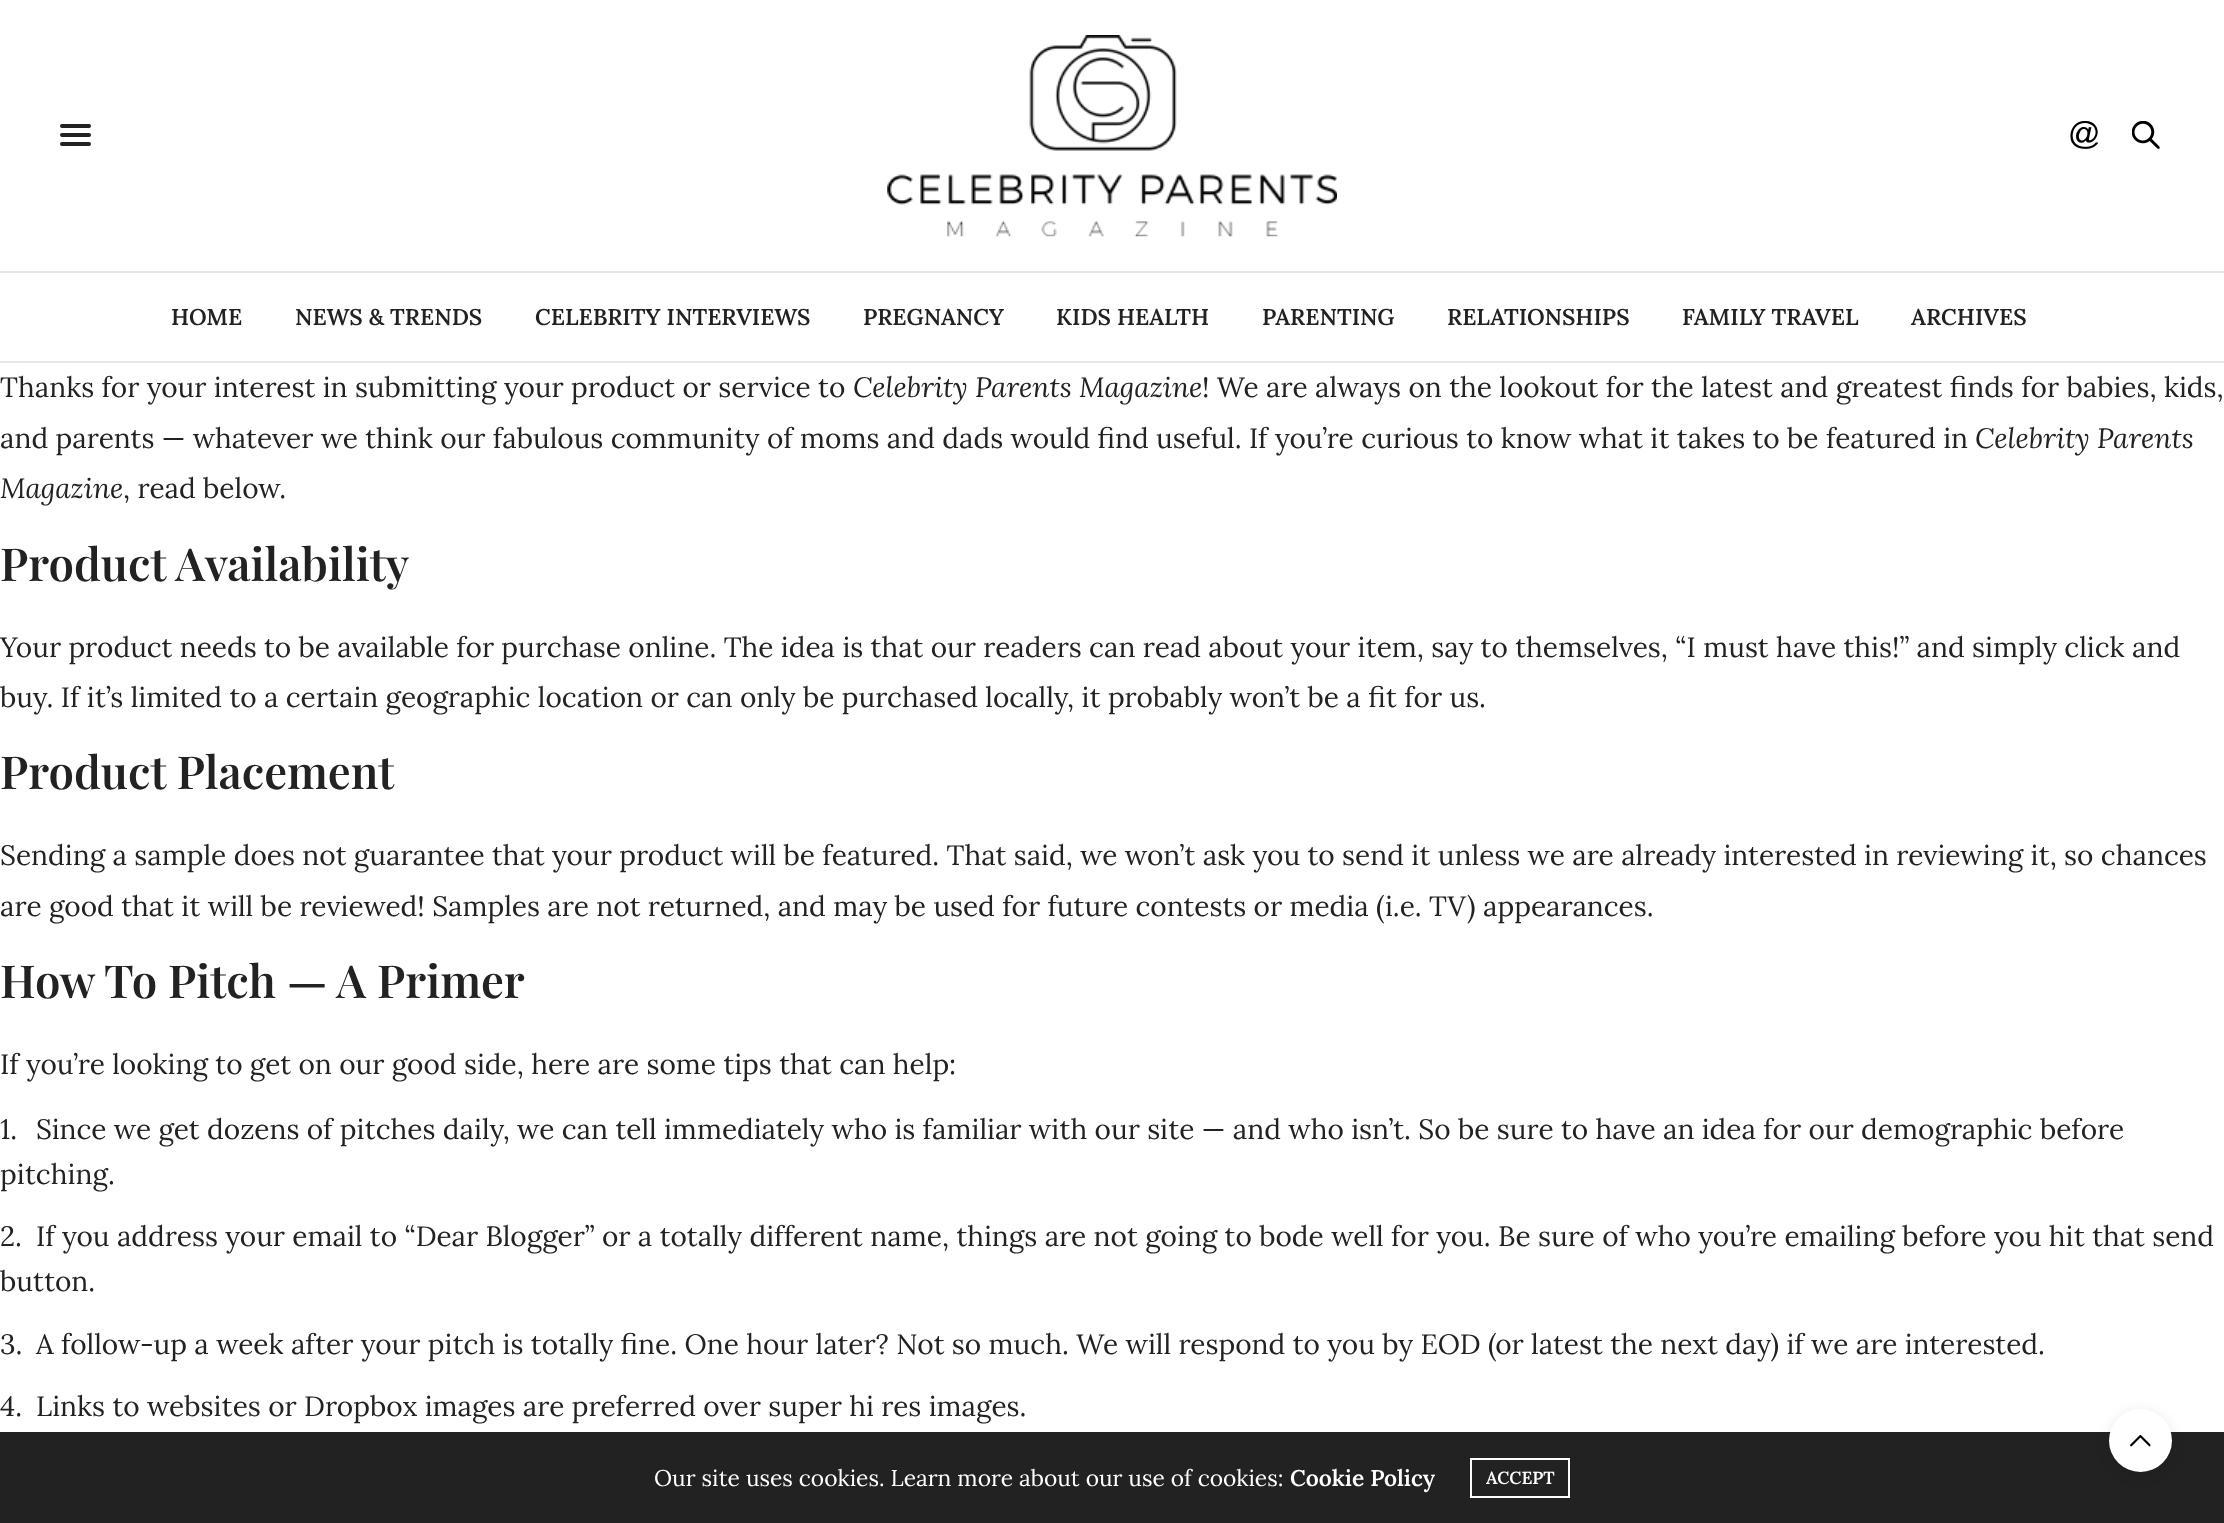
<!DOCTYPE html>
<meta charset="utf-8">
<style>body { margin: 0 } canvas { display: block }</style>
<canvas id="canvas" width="2224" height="1523"></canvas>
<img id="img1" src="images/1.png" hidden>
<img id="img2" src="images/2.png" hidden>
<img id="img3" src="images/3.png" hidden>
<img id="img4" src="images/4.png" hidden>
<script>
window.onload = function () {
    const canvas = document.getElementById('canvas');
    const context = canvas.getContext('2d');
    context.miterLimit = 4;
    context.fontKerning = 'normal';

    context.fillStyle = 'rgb(255, 255, 255)';
    context.fillRect(0, 0, 2224, 1523);
    context.fillStyle = 'rgb(230, 230, 230)';
    context.fillRect(0, 271, 2224, 2);
    context.fillStyle = 'rgb(34, 34, 34)';
    context.beginPath();
    context.roundRect(60, 124, 31, 4, 2);
    context.fill();
    context.beginPath();
    context.roundRect(60, 133, 31, 4, 2);
    context.fill();
    context.beginPath();
    context.roundRect(60, 142, 31, 4, 2);
    context.fill();
    context.drawImage(document.getElementById('img1'), 887, 35, 450, 202);
    context.drawImage(document.getElementById('img2'), 2070, 121, 28, 28);
    context.drawImage(document.getElementById('img3'), 2132, 121, 28, 28);
    context.fillStyle = 'rgb(230, 230, 230)';
    context.fillRect(0, 361, 2224, 2);
    context.fillStyle = 'rgb(34, 34, 34)';
    context.fillRect(0, 1432, 2224, 91);
    context.strokeStyle = 'rgb(255, 255, 255)';
    context.lineWidth = 2;
    context.strokeRect(1471, 1459, 98, 38);
    context.fillStyle = 'rgba(0, 0, 0, 0.1)';
    context.filter = 'blur(7px)';
    context.beginPath();
    context.roundRect(2109, 1412, 63, 63, 31.5);
    context.fill();
    context.filter = 'none';
    context.fillStyle = 'rgb(255, 255, 255)';
    context.beginPath();
    context.arc(2140.5, 1440.5, 31.5, 0, 2 * Math.PI);
    context.fill();
    context.drawImage(document.getElementById('img4'), 2130, 1435, 21, 12);
    context.font = '600 22.75px Lora';
    context.fillStyle = 'rgb(34, 34, 34)';
    context.fillText('HOME', 171, 325);
    context.fillText('NEWS & TRENDS', 295, 325);
    context.fillText('CELEBRITY INTERVIEWS', 535, 325);
    context.fillText('PREGNANCY', 863, 325);
    context.fillText('KIDS HEALTH', 1056, 325);
    context.fillText('PARENTING', 1262, 325);
    context.fillText('RELATIONSHIPS', 1447, 325);
    context.fillText('FAMILY TRAVEL', 1682, 325);
    context.fillText('ARCHIVES', 1911, 325);
    context.font = '28px Lora';
    context.fillText('Thanks for your interest in submitting your product or service to', 0, 397);
    context.font = 'italic 28px Lora';
    context.fillText('Celebrity Parents Magazine', 853, 397);
    context.font = '28px Lora';
    context.fillText('! We are always on the lookout for the latest and greatest finds for babies, kids,', 1202, 397);
    context.fillText('and parents — whatever we think our fabulous community of moms and dads would find useful. If you’re curious to know what it takes to be featured in', 0, 448);
    context.font = 'italic 28px Lora';
    context.fillText('Celebrity Parents', 1975, 448);
    context.fillText('Magazine', 0, 498);
    context.font = '28px Lora';
    context.fillText(', read below.', 123, 498);
    context.font = '600 45.5px Playfair Display';
    context.fillText('Product Availability', 0, 581);
    context.font = '28px Lora';
    context.fillText('Your product needs to be available for purchase online. The idea is that our readers can read about your item, say to themselves, “I must have this!” and simply click and', 0, 657);
    context.fillText('buy. If it’s limited to a certain geographic location or can only be purchased locally, it probably won’t be a fit for us.', 0, 707);
    context.font = '600 45.5px Playfair Display';
    context.fillText('Product Placement', 0, 789);
    context.font = '28px Lora';
    context.fillText('Sending a sample does not guarantee that your product will be featured. That said, we won’t ask you to send it unless we are already interested in reviewing it, so chances', 0, 865);
    context.fillText('are good that it will be reviewed! Samples are not returned, and may be used for future contests or media (i.e. TV) appearances.', 0, 916);
    context.font = '600 45.5px Playfair Display';
    context.fillText('How To Pitch — A Primer', 0, 998);
    context.font = '28px Lora';
    context.fillText('If you’re looking to get on our good side, here are some tips that can help:', 0, 1074);
    context.fillText('1.', 0, 1139);
    context.fillText('Since we get dozens of pitches daily, we can tell immediately who is familiar with our site — and who isn’t. So be sure to have an idea for our demographic before', 36, 1139);
    context.fillText('pitching.', 0, 1184);
    context.fillText('2.', 0, 1246);
    context.fillText('If you address your email to “Dear Blogger” or a totally different name, things are not going to bode well for you. Be sure of who you’re emailing before you hit that send', 36, 1246);
    context.fillText('button.', 0, 1291);
    context.fillText('3.', 0, 1354);
    context.fillText('A follow-up a week after your pitch is totally fine. One hour later? Not so much. We will respond to you by EOD (or latest the next day) if we are interested.', 36, 1354);
    context.fillText('4.', 0, 1416);
    context.fillText('Links to websites or Dropbox images are preferred over super hi res images.', 36, 1416);
    context.font = '22.75px Lora';
    context.fillStyle = 'rgb(255, 255, 255)';
    context.fillText('Our site uses cookies. Learn more about our use of cookies:', 654, 1486);
    context.font = '600 22.75px Lora';
    context.fillText('Cookie Policy', 1290, 1486);
    context.font = '600 17.5px Lora';
    context.fillText('ACCEPT', 1486, 1484);
};
</script>
